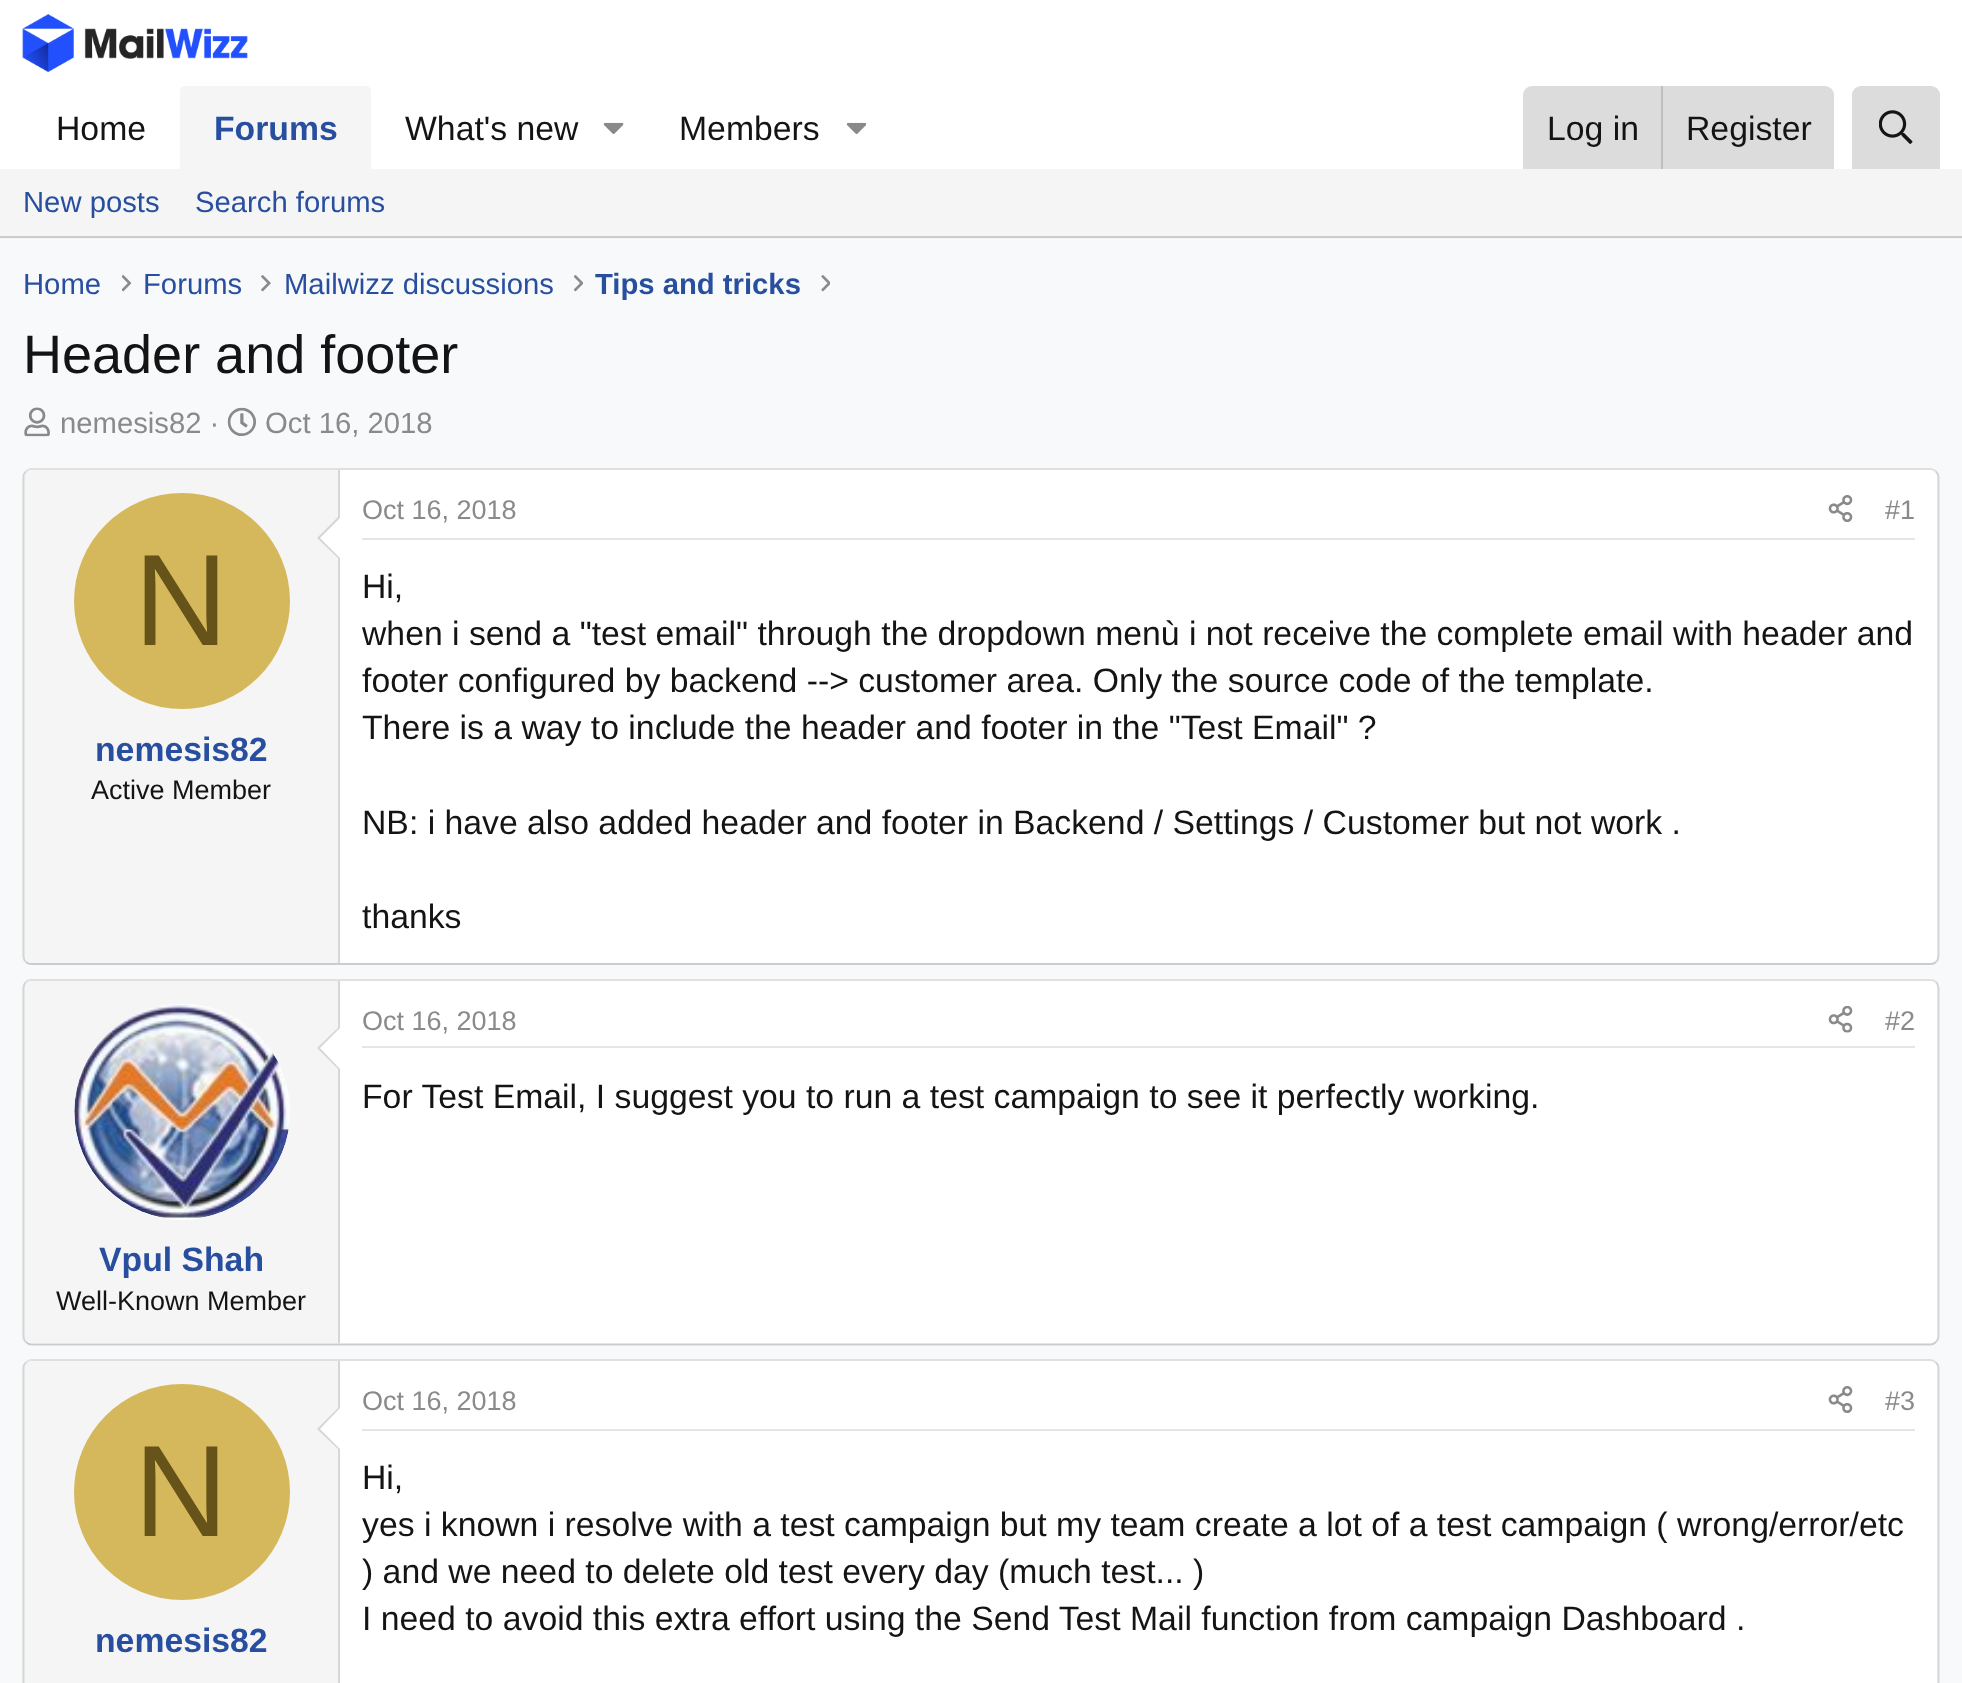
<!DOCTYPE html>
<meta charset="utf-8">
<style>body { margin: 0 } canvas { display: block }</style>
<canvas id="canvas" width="1962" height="1683"></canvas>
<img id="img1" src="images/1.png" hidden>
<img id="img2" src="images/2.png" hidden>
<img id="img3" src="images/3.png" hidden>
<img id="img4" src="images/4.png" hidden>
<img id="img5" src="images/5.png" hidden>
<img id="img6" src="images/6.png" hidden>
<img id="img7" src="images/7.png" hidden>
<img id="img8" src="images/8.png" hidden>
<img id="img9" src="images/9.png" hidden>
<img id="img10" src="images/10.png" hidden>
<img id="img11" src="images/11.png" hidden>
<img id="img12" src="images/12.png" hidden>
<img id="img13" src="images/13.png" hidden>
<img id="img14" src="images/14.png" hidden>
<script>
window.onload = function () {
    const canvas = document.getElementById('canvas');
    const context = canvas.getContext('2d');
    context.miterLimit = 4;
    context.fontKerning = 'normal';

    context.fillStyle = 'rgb(248, 249, 250)';
    context.fillRect(0, 0, 1962, 1683);
    context.fillStyle = 'rgb(255, 255, 255)';
    context.fillRect(0, 0, 1962, 169);
    context.drawImage(document.getElementById('img1'), 22, 14, 226, 58);
    context.fillStyle = 'rgb(245, 245, 245)';
    context.beginPath();
    context.roundRect(180, 86, 191, 83, [5, 5, 0, 0]);
    context.fill();
    context.drawImage(document.getElementById('img2'), 603, 122, 21, 12);
    context.drawImage(document.getElementById('img3'), 846, 122, 20, 12);
    context.fillStyle = 'rgb(220, 220, 220)';
    context.beginPath();
    context.roundRect(1523, 86, 311, 83, [9, 9, 0, 0]);
    context.fill();
    context.fillStyle = 'rgb(190, 190, 190)';
    context.fillRect(1661, 86, 2, 83);
    context.fillStyle = 'rgb(220, 220, 220)';
    context.beginPath();
    context.roundRect(1852, 86, 88, 83, [9, 9, 0, 0]);
    context.fill();
    context.drawImage(document.getElementById('img4'), 1879, 110, 34, 34);
    context.fillStyle = 'rgb(245, 245, 245)';
    context.fillRect(0, 169, 1962, 70);
    context.fillStyle = 'rgb(204, 204, 204)';
    context.fillRect(0, 236, 1962, 2);
    context.drawImage(document.getElementById('img5'), 122, 275, 9, 17);
    context.drawImage(document.getElementById('img6'), 261, 275, 10, 17);
    context.drawImage(document.getElementById('img7'), 574, 275, 9, 17);
    context.drawImage(document.getElementById('img8'), 821, 275, 9, 17);
    context.drawImage(document.getElementById('img9'), 24, 407, 26, 30);
    context.drawImage(document.getElementById('img10'), 227, 407, 29, 29);
    context.fillStyle = 'rgb(255, 255, 255)';
    context.beginPath();
    context.roundRect(23, 468, 1917, 497, 9);
    context.fill();
    context.beginPath();
    context.moveTo(26, 471.5);
    context.bezierCurveTo(27.5, 470, 29.5, 469, 31.5, 469);
    context.lineTo(1930.5, 469);
    context.bezierCurveTo(1932.5, 469, 1934.5, 470, 1936, 471.5);
    context.strokeStyle = 'rgb(224, 224, 224)';
    context.lineWidth = 2.2;
    context.stroke();
    context.beginPath();
    context.moveTo(1936, 471.5);
    context.bezierCurveTo(1937.5, 473, 1938.5, 475, 1938.5, 477);
    context.lineTo(1938.5, 956);
    context.bezierCurveTo(1938.5, 958.5, 1937.5, 960.5, 1936, 962);
    context.strokeStyle = 'rgb(214, 214, 214)';
    context.stroke();
    context.beginPath();
    context.moveTo(1936, 962);
    context.bezierCurveTo(1934.5, 963.5, 1932.5, 964, 1930.5, 964);
    context.lineTo(31.5, 964);
    context.bezierCurveTo(29.5, 964, 27.5, 963.5, 26, 962);
    context.strokeStyle = 'rgb(204, 204, 204)';
    context.stroke();
    context.beginPath();
    context.moveTo(26, 962);
    context.bezierCurveTo(24.5, 960.5, 23.5, 958.5, 23.5, 956);
    context.lineTo(23.5, 477);
    context.bezierCurveTo(23.5, 475, 24.5, 473, 26, 471.5);
    context.strokeStyle = 'rgb(214, 214, 214)';
    context.stroke();
    context.fillStyle = 'rgb(245, 245, 245)';
    context.beginPath();
    context.roundRect(25, 470, 315, 493, [7, 0, 0, 7]);
    context.fill();
    context.fillStyle = 'rgb(214, 214, 214)';
    context.fillRect(338, 470, 2, 493);
    context.beginPath();
    context.moveTo(340, 515);
    context.lineTo(340, 560);
    context.lineTo(317, 538);
    context.closePath();
    context.fill();
    context.fillStyle = 'rgb(255, 255, 255)';
    context.beginPath();
    context.moveTo(340, 518);
    context.lineTo(340, 558);
    context.lineTo(320, 538);
    context.closePath();
    context.fill();
    context.fillStyle = 'rgb(214, 184, 92)';
    context.beginPath();
    context.arc(182, 601, 108, 0, 2 * Math.PI);
    context.fill();
    context.fillStyle = 'rgb(229, 229, 229)';
    context.fillRect(362, 538, 1553, 2);
    context.drawImage(document.getElementById('img11'), 1828, 495, 25, 27);
    context.fillStyle = 'rgb(255, 255, 255)';
    context.beginPath();
    context.roundRect(23, 979, 1917, 367, 9);
    context.fill();
    context.beginPath();
    context.moveTo(26, 982);
    context.bezierCurveTo(27.5, 980.5, 29.5, 980, 31.5, 980);
    context.lineTo(1930.5, 980);
    context.bezierCurveTo(1932.5, 980, 1934.5, 980.5, 1936, 982);
    context.strokeStyle = 'rgb(224, 224, 224)';
    context.stroke();
    context.beginPath();
    context.moveTo(1936, 982);
    context.bezierCurveTo(1937.5, 983.5, 1938.5, 985.5, 1938.5, 988);
    context.lineTo(1938.5, 1336.5);
    context.bezierCurveTo(1938.5, 1338.5, 1937.5, 1340.5, 1936, 1342);
    context.strokeStyle = 'rgb(214, 214, 214)';
    context.stroke();
    context.beginPath();
    context.moveTo(1936, 1342);
    context.bezierCurveTo(1934.5, 1343.5, 1932.5, 1344.5, 1930.5, 1344.5);
    context.lineTo(31.5, 1344.5);
    context.bezierCurveTo(29.5, 1344.5, 27.5, 1343.5, 26, 1342);
    context.strokeStyle = 'rgb(204, 204, 204)';
    context.stroke();
    context.beginPath();
    context.moveTo(26, 1342);
    context.bezierCurveTo(24.5, 1340.5, 23.5, 1338.5, 23.5, 1336.5);
    context.lineTo(23.5, 988);
    context.bezierCurveTo(23.5, 985.5, 24.5, 983.5, 26, 982);
    context.strokeStyle = 'rgb(214, 214, 214)';
    context.stroke();
    context.fillStyle = 'rgb(229, 229, 229)';
    context.fillRect(362, 1046, 1553, 2);
    context.drawImage(document.getElementById('img12'), 1828, 1006, 25, 27);
    context.fillStyle = 'rgb(245, 245, 245)';
    context.beginPath();
    context.roundRect(25, 981, 315, 362, [7, 0, 0, 7]);
    context.fill();
    context.fillStyle = 'rgb(214, 214, 214)';
    context.fillRect(338, 981, 2, 362);
    context.fillStyle = 'rgb(255, 255, 255)';
    context.beginPath();
    context.arc(182, 1112, 108, 0, 2 * Math.PI);
    context.fill();
    context.drawImage(document.getElementById('img13'), 74, 1004, 216, 215);
    context.fillStyle = 'rgb(214, 214, 214)';
    context.beginPath();
    context.moveTo(340, 1026);
    context.lineTo(340, 1071);
    context.lineTo(317, 1048);
    context.closePath();
    context.fill();
    context.fillStyle = 'rgb(255, 255, 255)';
    context.beginPath();
    context.moveTo(340, 1028);
    context.lineTo(340, 1069);
    context.lineTo(320, 1048);
    context.closePath();
    context.fill();
    context.beginPath();
    context.roundRect(23, 1359, 1917, 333, 9);
    context.fill();
    context.beginPath();
    context.moveTo(26, 1362.5);
    context.bezierCurveTo(27.5, 1361, 29.5, 1360, 31.5, 1360);
    context.lineTo(1930.5, 1360);
    context.bezierCurveTo(1932.5, 1360, 1934.5, 1361, 1936, 1362.5);
    context.strokeStyle = 'rgb(224, 224, 224)';
    context.stroke();
    context.beginPath();
    context.moveTo(1936, 1362.5);
    context.bezierCurveTo(1937.5, 1364, 1938.5, 1366, 1938.5, 1368);
    context.lineTo(1938.5, 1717);
    context.bezierCurveTo(1938.5, 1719, 1937.5, 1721, 1936, 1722.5);
    context.strokeStyle = 'rgb(214, 214, 214)';
    context.stroke();
    context.beginPath();
    context.moveTo(26, 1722.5);
    context.bezierCurveTo(24.5, 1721, 23.5, 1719, 23.5, 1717);
    context.lineTo(23.5, 1368);
    context.bezierCurveTo(23.5, 1366, 24.5, 1364, 26, 1362.5);
    context.stroke();
    context.fillStyle = 'rgb(245, 245, 245)';
    context.beginPath();
    context.moveTo(32, 1361);
    context.lineTo(340, 1361);
    context.lineTo(340, 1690);
    context.lineTo(32, 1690);
    context.bezierCurveTo(28, 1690, 25, 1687, 25, 1683);
    context.lineTo(25, 1368);
    context.bezierCurveTo(25, 1364, 28, 1361, 32, 1361);
    context.closePath();
    context.fill();
    context.fillStyle = 'rgb(214, 214, 214)';
    context.fillRect(338, 1361, 2, 322);
    context.beginPath();
    context.moveTo(340, 1406);
    context.lineTo(340, 1451);
    context.lineTo(317, 1429);
    context.closePath();
    context.fill();
    context.fillStyle = 'rgb(255, 255, 255)';
    context.beginPath();
    context.moveTo(340, 1408);
    context.lineTo(340, 1449);
    context.lineTo(320, 1429);
    context.closePath();
    context.fill();
    context.fillStyle = 'rgb(214, 184, 92)';
    context.beginPath();
    context.arc(182, 1492, 108, 0, 2 * Math.PI);
    context.fill();
    context.fillStyle = 'rgb(229, 229, 229)';
    context.fillRect(362, 1429, 1553, 2);
    context.drawImage(document.getElementById('img14'), 1828, 1386, 25, 27);
    context.font = '33.75px Liberation Sans';
    context.fillStyle = 'rgb(20, 20, 20)';
    context.fillText('Home', 56, 140);
    context.font = 'bold 33.75px Liberation Sans';
    context.fillStyle = 'rgb(40, 78, 159)';
    context.fillText('Forums', 214, 140);
    context.font = '33.75px Liberation Sans';
    context.fillStyle = 'rgb(20, 20, 20)';
    context.fillText('What\'s new', 405, 140);
    context.fillText('Members', 679, 140);
    context.fillText('Log in', 1547, 140);
    context.fillText('Register', 1686, 140);
    context.font = '29.25px Liberation Sans';
    context.fillStyle = 'rgb(40, 78, 159)';
    context.fillText('New posts', 23, 212);
    context.fillText('Search forums', 195, 212);
    context.fillText('Home', 23, 294);
    context.fillText('Forums', 143, 294);
    context.fillText('Mailwizz discussions', 284, 294);
    context.font = 'bold 29.25px Liberation Sans';
    context.fillText('Tips and tricks', 595, 294);
    context.font = '54px Liberation Sans';
    context.fillStyle = 'rgb(20, 20, 20)';
    context.fillText('Header and footer', 23, 373);
    context.font = '29.25px Liberation Sans';
    context.fillStyle = 'rgb(138, 138, 138)';
    context.fillText('nemesis82 ·', 60, 433);
    context.fillText('Oct 16, 2018', 265, 433);
    context.font = '130px Liberation Sans';
    context.fillStyle = 'rgb(102, 83, 26)';
    context.fillText('N', 134, 645);
    context.font = 'bold 33.75px Liberation Sans';
    context.fillStyle = 'rgb(40, 78, 159)';
    context.fillText('nemesis82', 95, 761);
    context.font = '27px Liberation Sans';
    context.fillStyle = 'rgb(20, 20, 20)';
    context.fillText('Active Member', 91, 799);
    context.fillStyle = 'rgb(138, 138, 138)';
    context.fillText('Oct 16, 2018', 362, 519);
    context.fillText('#1', 1885, 519);
    context.font = '33.75px Liberation Sans';
    context.fillStyle = 'rgb(20, 20, 20)';
    context.fillText('Hi,', 362, 598);
    context.fillText('when i send a "test email" through the dropdown menù i not receive the complete email with header and', 362, 645);
    context.fillText('footer configured by backend --> customer area. Only the source code of the template.', 362, 692);
    context.fillText('There is a way to include the header and footer in the "Test Email" ?', 362, 739);
    context.fillText('NB: i have also added header and footer in Backend / Settings / Customer but not work .', 362, 834);
    context.fillText('thanks', 362, 928);
    context.font = '27px Liberation Sans';
    context.fillStyle = 'rgb(138, 138, 138)';
    context.fillText('Oct 16, 2018', 362, 1030);
    context.fillText('#2', 1885, 1030);
    context.font = '33.75px Liberation Sans';
    context.fillStyle = 'rgb(20, 20, 20)';
    context.fillText('For Test Email, I suggest you to run a test campaign to see it perfectly working.', 362, 1108);
    context.font = 'bold 33.75px Liberation Sans';
    context.fillStyle = 'rgb(40, 78, 159)';
    context.fillText('Vpul Shah', 99, 1271);
    context.font = '27px Liberation Sans';
    context.fillStyle = 'rgb(20, 20, 20)';
    context.fillText('Well-Known Member', 56, 1310);
    context.font = '130px Liberation Sans';
    context.fillStyle = 'rgb(102, 83, 26)';
    context.fillText('N', 134, 1536);
    context.font = 'bold 33.75px Liberation Sans';
    context.fillStyle = 'rgb(40, 78, 159)';
    context.fillText('nemesis82', 95, 1652);
    context.font = '27px Liberation Sans';
    context.fillStyle = 'rgb(138, 138, 138)';
    context.fillText('Oct 16, 2018', 362, 1410);
    context.fillText('#3', 1885, 1410);
    context.font = '33.75px Liberation Sans';
    context.fillStyle = 'rgb(20, 20, 20)';
    context.fillText('Hi,', 362, 1489);
    context.fillText('yes i known i resolve with a test campaign but my team create a lot of a test campaign ( wrong/error/etc', 362, 1536);
    context.fillText(') and we need to delete old test every day (much test... )', 362, 1583);
    context.fillText('I need to avoid this extra effort using the Send Test Mail function from campaign Dashboard .', 362, 1630);
};
</script>
